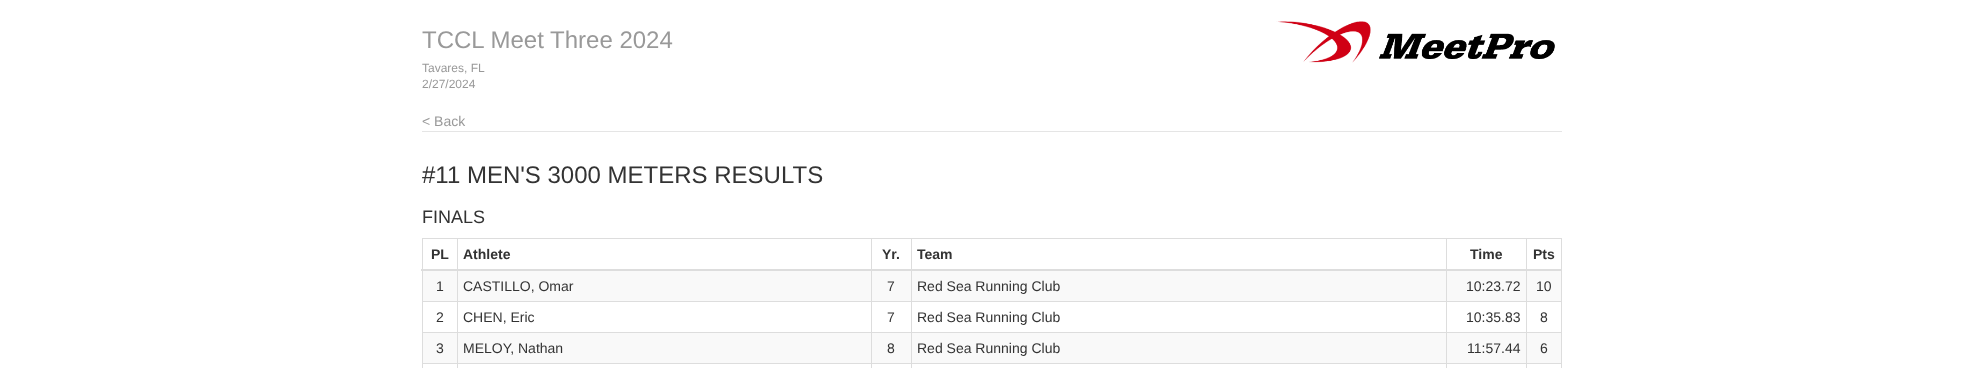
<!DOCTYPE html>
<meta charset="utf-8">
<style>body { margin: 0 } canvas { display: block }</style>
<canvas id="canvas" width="1983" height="368"></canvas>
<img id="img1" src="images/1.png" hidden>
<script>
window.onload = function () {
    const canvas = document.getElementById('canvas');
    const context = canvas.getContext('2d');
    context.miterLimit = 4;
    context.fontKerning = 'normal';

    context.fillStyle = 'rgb(255, 255, 255)';
    context.fillRect(0, 0, 1983, 368);
    context.fillStyle = 'rgb(229, 229, 229)';
    context.fillRect(422, 131, 1140, 1);
    context.drawImage(document.getElementById('img1'), 1276, 21, 279, 42);
    context.fillStyle = 'rgb(221, 221, 221)';
    context.fillRect(422, 238, 1140, 1);
    context.fillRect(1561, 238, 1, 130);
    context.fillRect(422, 238, 1, 130);
    context.fillRect(1526, 301, 36, 1);
    context.fillRect(1526, 332, 36, 1);
    context.fillRect(1526, 363, 36, 1);
    context.fillRect(1526, 363, 1, 5);
    context.fillRect(1446, 363, 81, 1);
    context.fillRect(1526, 332, 1, 32);
    context.fillRect(1446, 332, 81, 1);
    context.fillRect(1526, 301, 1, 32);
    context.fillRect(1446, 301, 81, 1);
    context.fillRect(1446, 363, 1, 5);
    context.fillRect(911, 363, 536, 1);
    context.fillRect(1446, 332, 1, 32);
    context.fillRect(911, 332, 536, 1);
    context.fillRect(1446, 301, 1, 32);
    context.fillRect(911, 301, 536, 1);
    context.fillRect(911, 363, 1, 5);
    context.fillRect(871, 363, 41, 1);
    context.fillRect(911, 332, 1, 32);
    context.fillRect(871, 332, 41, 1);
    context.fillRect(911, 301, 1, 32);
    context.fillRect(871, 301, 41, 1);
    context.fillRect(871, 363, 1, 5);
    context.fillRect(457, 363, 415, 1);
    context.fillRect(871, 332, 1, 32);
    context.fillRect(457, 332, 415, 1);
    context.fillRect(871, 301, 1, 32);
    context.fillRect(457, 301, 415, 1);
    context.fillRect(457, 363, 1, 5);
    context.fillRect(422, 363, 36, 1);
    context.fillRect(457, 332, 1, 32);
    context.fillRect(422, 332, 36, 1);
    context.fillRect(457, 301, 1, 32);
    context.fillRect(422, 301, 36, 1);
    context.fillRect(457, 238, 1, 64);
    context.fillRect(871, 238, 1, 64);
    context.fillRect(911, 238, 1, 64);
    context.fillRect(1446, 238, 1, 64);
    context.fillRect(1526, 238, 1, 64);
    context.fillRect(421, 269, 1141, 2);
    context.fillStyle = 'rgb(249, 249, 249)';
    context.fillRect(423, 271, 34, 30);
    context.fillRect(458, 271, 413, 30);
    context.fillRect(872, 271, 39, 30);
    context.fillRect(912, 271, 534, 30);
    context.fillRect(1447, 271, 79, 30);
    context.fillRect(1527, 271, 34, 30);
    context.fillRect(423, 333, 34, 30);
    context.fillRect(458, 333, 413, 30);
    context.fillRect(872, 333, 39, 30);
    context.fillRect(912, 333, 534, 30);
    context.fillRect(1447, 333, 79, 30);
    context.fillRect(1527, 333, 34, 30);
    context.font = '24px Liberation Sans';
    context.fillStyle = 'rgb(153, 153, 153)';
    context.fillText('TCCL Meet Three 2024', 422, 48);
    context.font = '12px Liberation Sans';
    context.fillText('Tavares, FL', 422, 72);
    context.fillText('2/27/2024', 422, 88);
    context.font = '14px Liberation Sans';
    context.fillText('< Back', 422, 126);
    context.font = '24px Liberation Sans';
    context.fillStyle = 'rgb(51, 51, 51)';
    context.fillText('#11 MEN\'S 3000 METERS RESULTS', 422, 183);
    context.font = '18px Liberation Sans';
    context.fillText('FINALS', 422, 223);
    context.font = 'bold 14px Liberation Sans';
    context.fillText('PL', 431, 259);
    context.fillText('Athlete', 463, 259);
    context.fillText('Yr.', 882, 259);
    context.fillText('Team', 917, 259);
    context.fillText('Time', 1470, 259);
    context.fillText('Pts', 1533, 259);
    context.font = '14px Liberation Sans';
    context.fillText('1', 436, 291);
    context.fillText('CASTILLO, Omar', 463, 291);
    context.fillText('7', 887, 291);
    context.fillText('Red Sea Running Club', 917, 291);
    context.fillText('10:23.72', 1466, 291);
    context.fillText('10', 1536, 291);
    context.fillText('2', 436, 322);
    context.fillText('CHEN, Eric', 463, 322);
    context.fillText('7', 887, 322);
    context.fillText('Red Sea Running Club', 917, 322);
    context.fillText('10:35.83', 1466, 322);
    context.fillText('8', 1540, 322);
    context.fillText('3', 436, 353);
    context.fillText('MELOY, Nathan', 463, 353);
    context.fillText('8', 887, 353);
    context.fillText('Red Sea Running Club', 917, 353);
    context.fillText('11:57.44', 1467, 353);
    context.fillText('6', 1540, 353);
};
</script>
